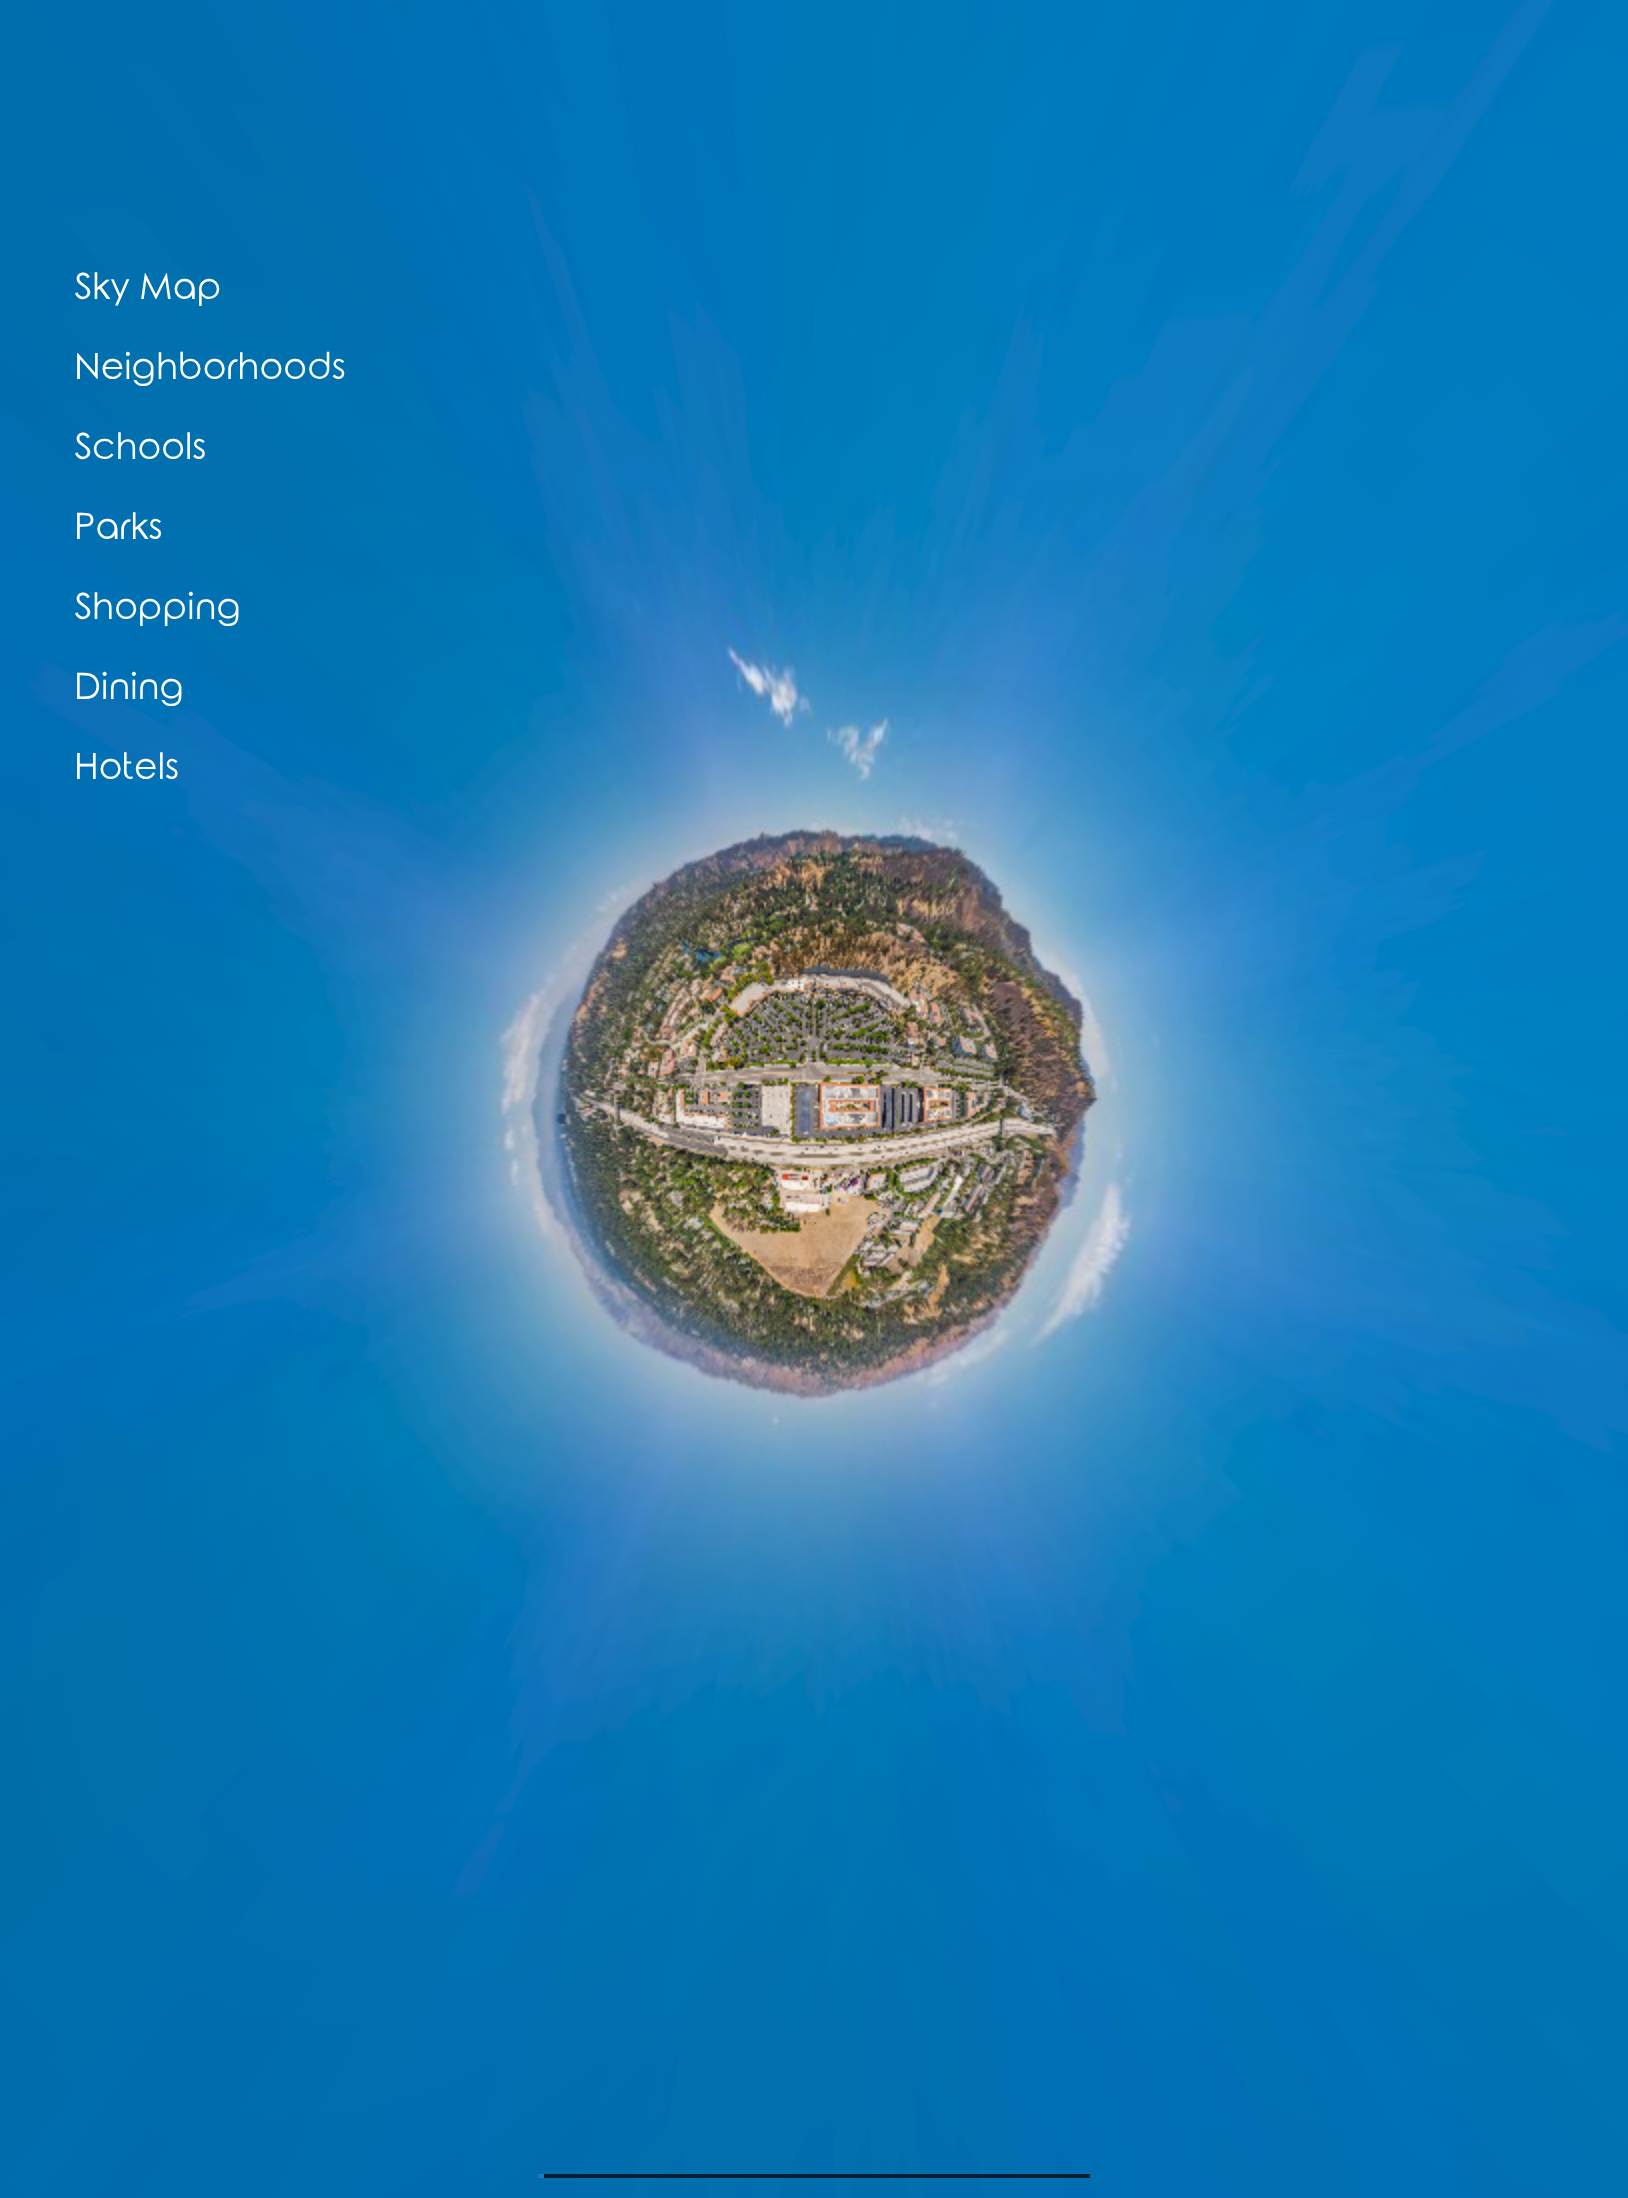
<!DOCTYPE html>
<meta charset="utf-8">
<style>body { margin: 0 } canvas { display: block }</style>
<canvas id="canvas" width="1628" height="2198"></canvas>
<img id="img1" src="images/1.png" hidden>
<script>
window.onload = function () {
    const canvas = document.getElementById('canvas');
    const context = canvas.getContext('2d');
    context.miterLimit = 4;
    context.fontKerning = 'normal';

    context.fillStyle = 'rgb(255, 255, 255)';
    context.fillRect(0, 0, 1628, 2198);
    context.drawImage(document.getElementById('img1'), 0, 0, 1628, 2198);
    context.fillStyle = 'rgba(0, 0, 0, 0.7)';
    context.fillRect(538, 2174, 552, 4);
    context.fillStyle = 'rgb(35, 116, 194)';
    context.fillRect(538, 2174, 6, 4);
    context.font = '36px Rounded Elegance';
    context.fillStyle = 'rgb(255, 255, 255)';
    context.fillText('Sky Map', 74, 300);
    context.fillText('Neighborhoods', 74, 380);
    context.fillText('Schools', 74, 460);
    context.fillText('Parks', 74, 540);
    context.fillText('Shopping', 74, 620);
    context.fillText('Dining', 74, 700);
    context.fillText('Hotels', 74, 780);
};
</script>
